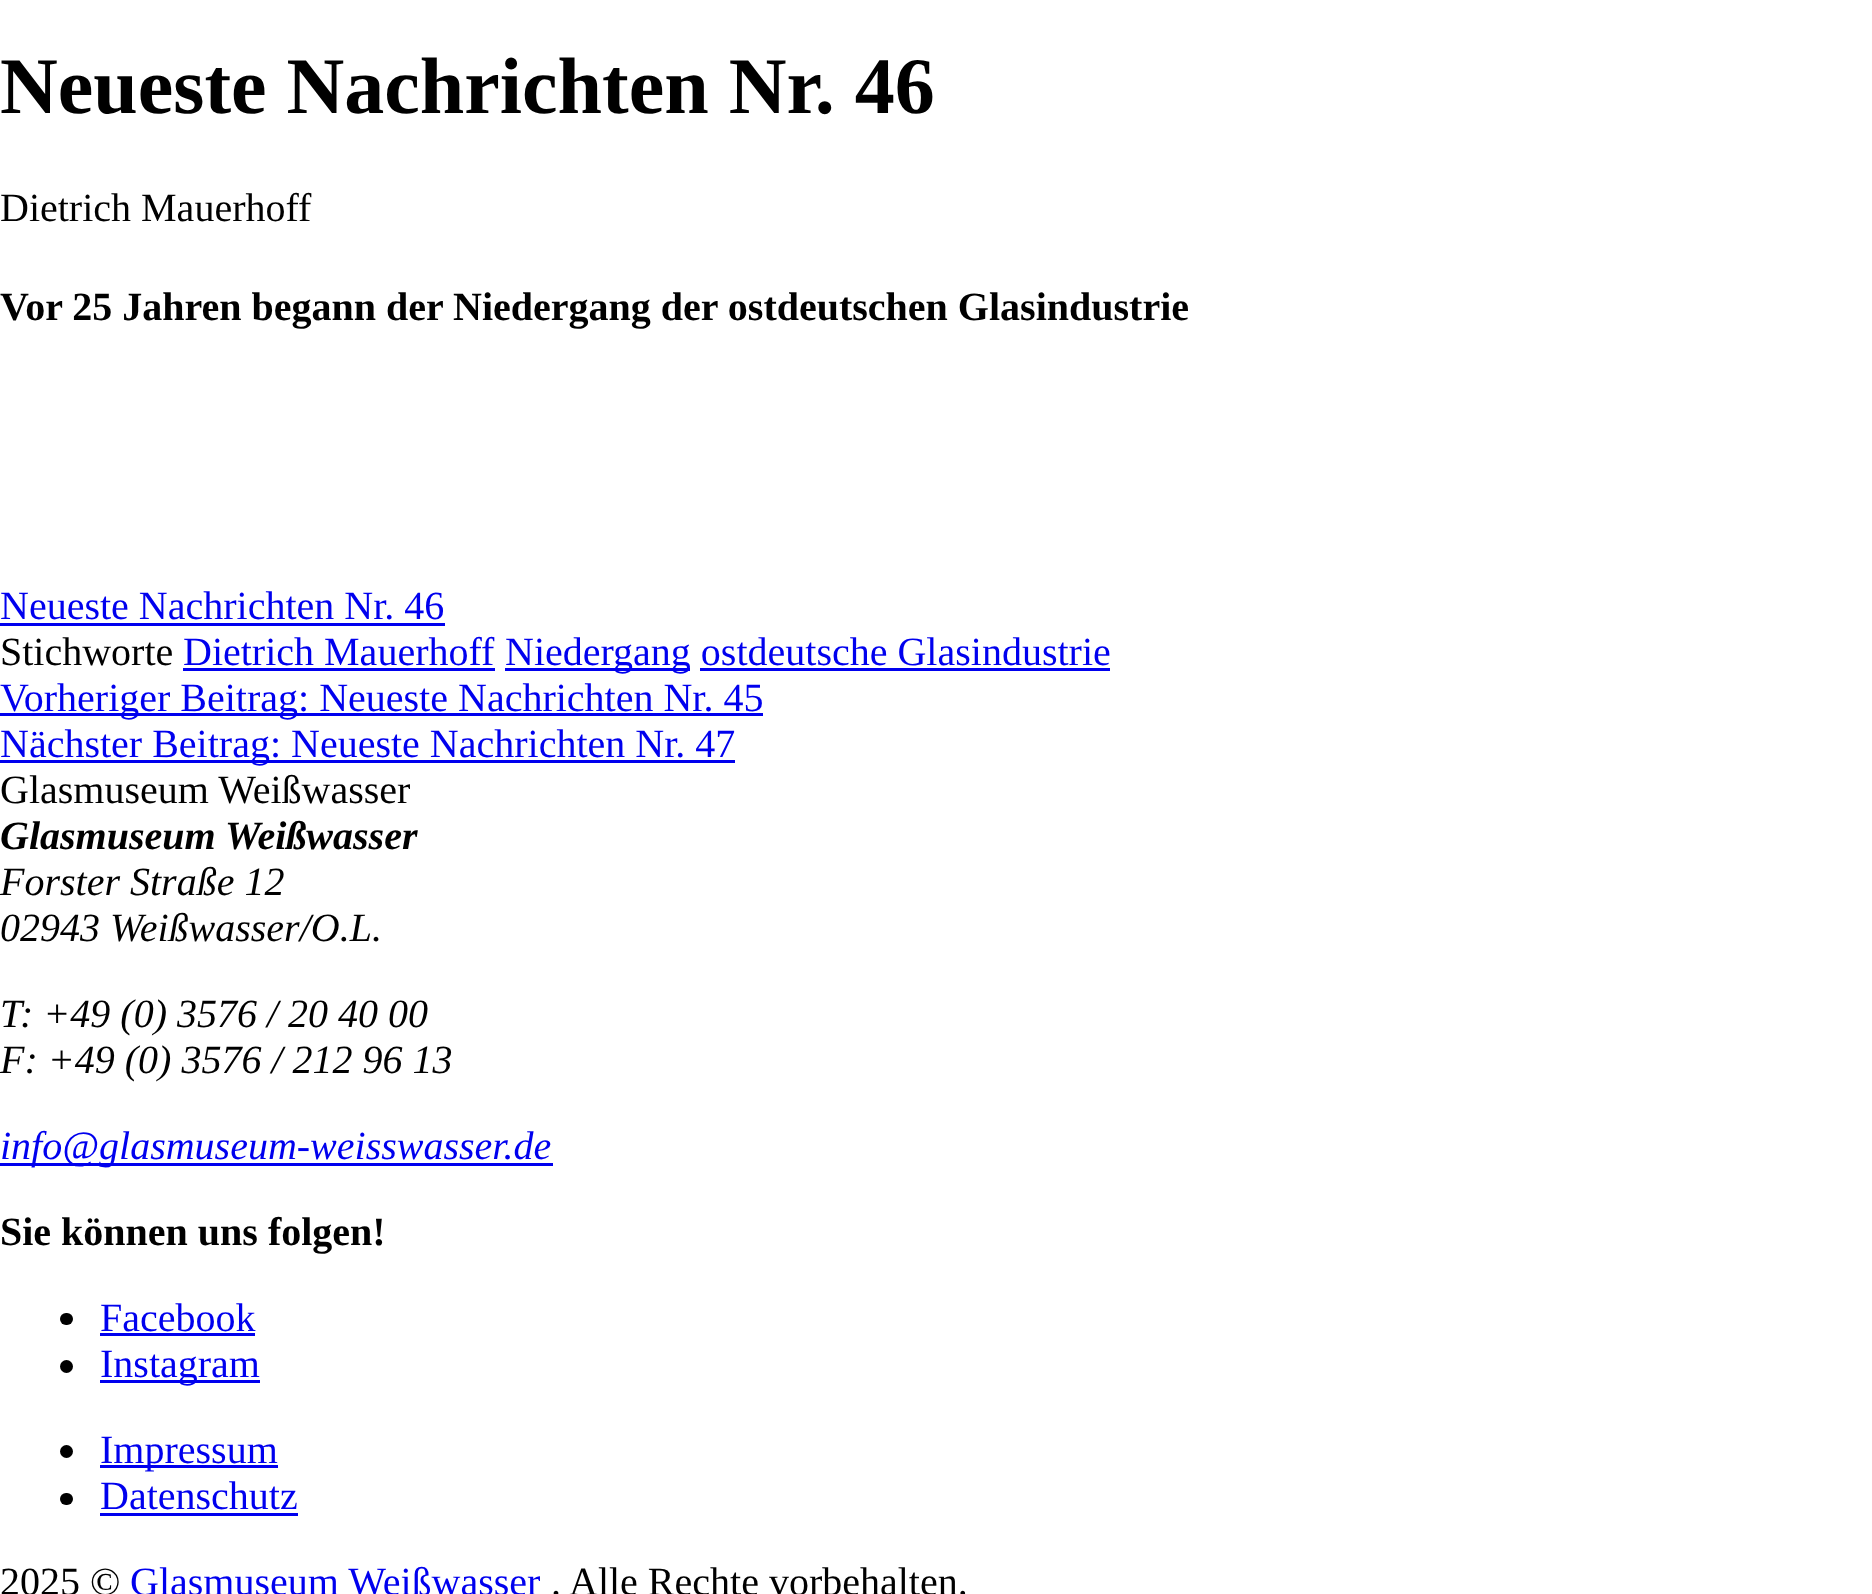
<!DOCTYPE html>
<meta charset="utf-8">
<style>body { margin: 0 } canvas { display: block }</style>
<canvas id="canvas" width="1872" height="1594"></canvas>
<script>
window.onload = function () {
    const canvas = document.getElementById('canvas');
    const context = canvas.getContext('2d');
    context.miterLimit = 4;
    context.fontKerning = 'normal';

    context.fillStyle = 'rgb(255, 255, 255)';
    context.fillRect(0, 0, 1872, 1594);
    context.fillStyle = 'rgb(0, 0, 238)';
    context.fillRect(0, 623, 445, 3);
    context.fillRect(183, 668, 312, 3);
    context.fillRect(505, 668, 185, 3);
    context.fillRect(700, 668, 410, 3);
    context.fillRect(0, 713, 763, 3);
    context.fillRect(0, 760, 735, 3);
    context.fillRect(0, 1163, 553, 3);
    context.fillStyle = 'rgb(0, 0, 0)';
    context.beginPath();
    context.roundRect(60, 1313, 13, 12, 6);
    context.fill();
    context.fillStyle = 'rgb(0, 0, 238)';
    context.fillRect(100, 1333, 155, 3);
    context.fillStyle = 'rgb(0, 0, 0)';
    context.beginPath();
    context.arc(66.5, 1366.5, 6.5, 0, 2 * Math.PI);
    context.fill();
    context.fillStyle = 'rgb(0, 0, 238)';
    context.fillRect(100, 1380, 160, 3);
    context.fillStyle = 'rgb(0, 0, 0)';
    context.beginPath();
    context.arc(66.5, 1451.5, 6.5, 0, 2 * Math.PI);
    context.fill();
    context.fillStyle = 'rgb(0, 0, 238)';
    context.fillRect(100, 1465, 178, 3);
    context.fillStyle = 'rgb(0, 0, 0)';
    context.beginPath();
    context.roundRect(60, 1493, 13, 12, 6);
    context.fill();
    context.fillStyle = 'rgb(0, 0, 238)';
    context.fillRect(100, 1513, 198, 3);
    context.font = 'bold 80px Liberation Serif';
    context.fillStyle = 'rgb(0, 0, 0)';
    context.fillText('Neueste Nachrichten Nr. 46', 0, 113);
    context.font = '40px Liberation Serif';
    context.fillText('Dietrich Mauerhoff', 0, 221);
    context.font = 'bold 40px Liberation Serif';
    context.fillText('Vor 25 Jahren begann der Niedergang der ostdeutschen Glasindustrie', 0, 320);
    context.font = '40px Liberation Serif';
    context.fillStyle = 'rgb(0, 0, 238)';
    context.fillText('Neueste Nachrichten Nr. 46', 0, 619);
    context.fillStyle = 'rgb(0, 0, 0)';
    context.fillText('Stichworte', 0, 665);
    context.fillStyle = 'rgb(0, 0, 238)';
    context.fillText('Dietrich Mauerhoff', 183, 665);
    context.fillText('Niedergang ostdeutsche Glasindustrie', 505, 665);
    context.fillText('Vorheriger Beitrag: Neueste Nachrichten Nr. 45', 0, 711);
    context.fillText('Nächster Beitrag: Neueste Nachrichten Nr. 47', 0, 757);
    context.fillStyle = 'rgb(0, 0, 0)';
    context.fillText('Glasmuseum Weißwasser', 0, 803);
    context.font = 'italic bold 40px Liberation Serif';
    context.fillText('Glasmuseum Weißwasser', 0, 849);
    context.font = 'italic 40px Liberation Serif';
    context.fillText('Forster Straße 12', 0, 895);
    context.fillText('02943 Weißwasser/O.L.', 0, 941);
    context.fillText('T: +49 (0) 3576 / 20 40 00', 0, 1027);
    context.fillText('F: +49 (0) 3576 / 212 96 13', 0, 1073);
    context.fillStyle = 'rgb(0, 0, 238)';
    context.fillText('info@glasmuseum-weisswasser.de', 0, 1159);
    context.font = 'bold 40px Liberation Serif';
    context.fillStyle = 'rgb(0, 0, 0)';
    context.fillText('Sie können uns folgen!', 0, 1245);
    context.font = '40px Liberation Serif';
    context.fillStyle = 'rgb(0, 0, 238)';
    context.fillText('Facebook', 100, 1331);
    context.fillText('Instagram', 100, 1377);
    context.fillText('Impressum', 100, 1463);
    context.fillText('Datenschutz', 100, 1509);
    context.fillStyle = 'rgb(0, 0, 0)';
    context.fillText('2025 ©', 0, 1595);
    context.fillStyle = 'rgb(0, 0, 238)';
    context.fillText('Glasmuseum Weißwasser', 130, 1595);
    context.fillStyle = 'rgb(0, 0, 0)';
    context.fillText('.', 551, 1595);
    context.fillText('Alle Rechte vorbehalten.', 569, 1595);
};
</script>
